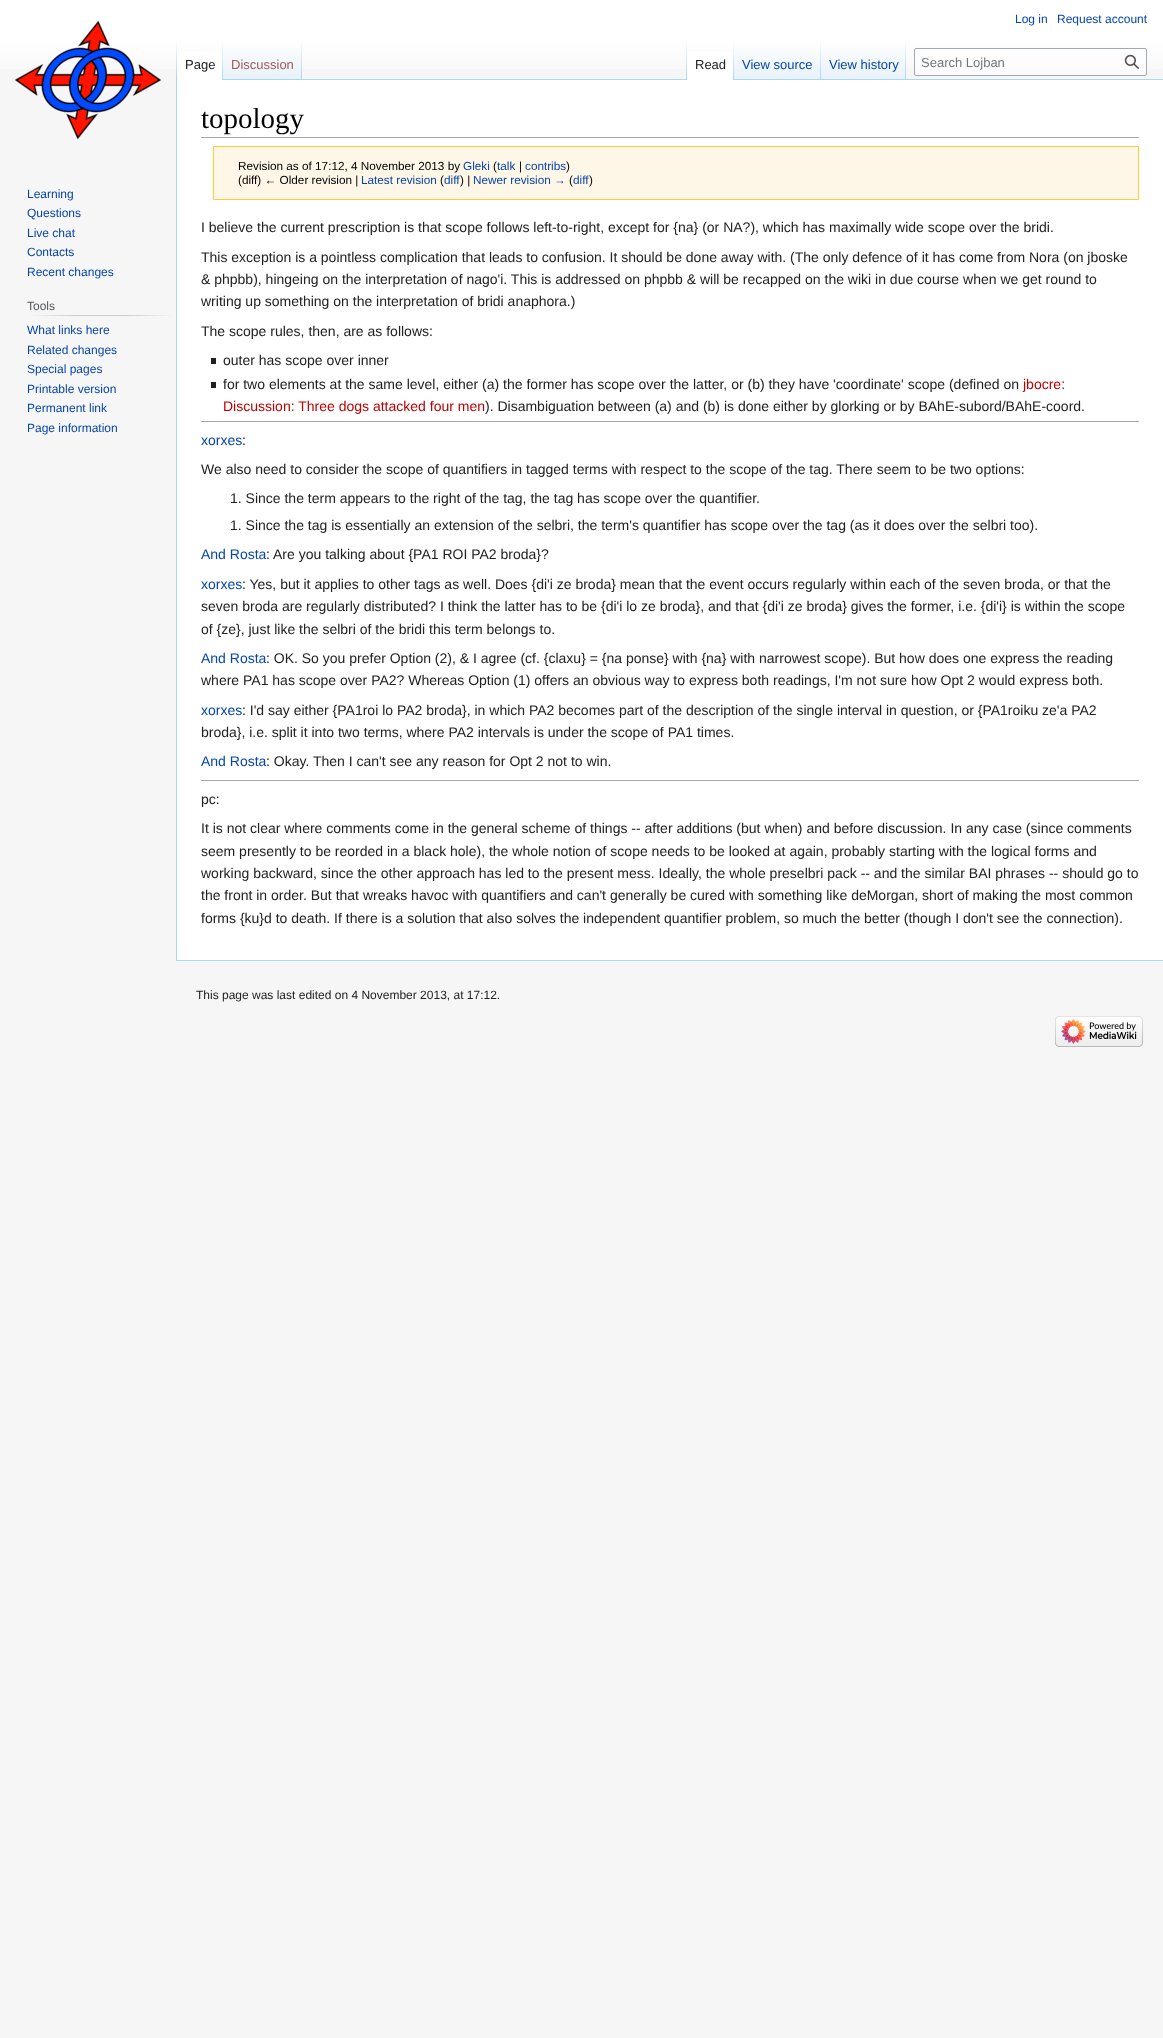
<!DOCTYPE html>
<meta charset="utf-8">
<style>body { margin: 0 } canvas { display: block }</style>
<canvas id="canvas" width="1163" height="2038"></canvas>
<img id="img1" src="images/1.png" hidden>
<img id="img2" src="images/2.png" hidden>
<img id="img3" src="images/3.png" hidden>
<script>
window.onload = function () {
    const canvas = document.getElementById('canvas');
    const context = canvas.getContext('2d');
    context.miterLimit = 4;
    context.fontKerning = 'normal';
    let gradient;

    context.fillStyle = 'rgb(246, 246, 246)';
    context.fillRect(0, 0, 1163, 2038);
    gradient = context.createLinearGradient(582, 0, 582, 80);
    gradient.addColorStop(0.5, 'rgb(255, 255, 255)');
    gradient.addColorStop(1, 'rgb(246, 246, 246)');
    context.fillStyle = gradient;
    context.fillRect(0, 0, 1163, 69);
    context.fillStyle = 'rgb(167, 215, 249)';
    context.fillRect(176, 960, 987, 1);
    context.fillRect(176, 79, 1, 882);
    gradient = context.createLinearGradient(177, 40, 177, 80);
    gradient.addColorStop(0, 'rgba(167, 215, 249, 0)');
    gradient.addColorStop(1, 'rgb(167, 215, 249)');
    context.fillStyle = gradient;
    context.fillRect(176, 40, 1, 40);
    context.fillStyle = 'rgb(255, 255, 255)';
    context.fillRect(177, 51, 45, 29);
    gradient = context.createLinearGradient(223, 40, 223, 80);
    gradient.addColorStop(0, 'rgb(255, 255, 255)');
    gradient.addColorStop(1, 'rgb(167, 215, 249)');
    context.fillStyle = gradient;
    context.fillRect(222, 40, 1, 40);
    gradient = context.createLinearGradient(263, 80, 263, 40);
    gradient.addColorStop(0, 'rgb(119, 193, 246)');
    gradient.addColorStop(0.03, 'rgb(232, 242, 248)');
    gradient.addColorStop(1, 'rgb(255, 255, 255)');
    context.fillStyle = gradient;
    context.fillRect(223, 46, 79, 34);
    gradient = context.createLinearGradient(302, 40, 302, 80);
    gradient.addColorStop(0, 'rgba(167, 215, 249, 0)');
    gradient.addColorStop(1, 'rgb(167, 215, 249)');
    context.fillStyle = gradient;
    context.fillRect(301, 40, 1, 40);
    context.fillStyle = 'rgb(167, 215, 249)';
    context.fillRect(302, 79, 861, 1);
    gradient = context.createLinearGradient(687, 40, 687, 80);
    gradient.addColorStop(0, 'rgba(167, 215, 249, 0)');
    gradient.addColorStop(1, 'rgb(167, 215, 249)');
    context.fillStyle = gradient;
    context.fillRect(686, 40, 1, 40);
    context.fillStyle = 'rgb(255, 255, 255)';
    context.fillRect(687, 51, 46, 29);
    gradient = context.createLinearGradient(734, 40, 734, 80);
    gradient.addColorStop(0, 'rgb(255, 255, 255)');
    gradient.addColorStop(1, 'rgb(167, 215, 249)');
    context.fillStyle = gradient;
    context.fillRect(733, 40, 1, 40);
    gradient = context.createLinearGradient(778, 80, 778, 40);
    gradient.addColorStop(0, 'rgb(119, 193, 246)');
    gradient.addColorStop(0.03, 'rgb(232, 242, 248)');
    gradient.addColorStop(1, 'rgb(255, 255, 255)');
    context.fillStyle = gradient;
    context.fillRect(734, 46, 87, 33);
    gradient = context.createLinearGradient(821, 40, 821, 80);
    gradient.addColorStop(0, 'rgba(167, 215, 249, 0)');
    gradient.addColorStop(1, 'rgb(167, 215, 249)');
    context.fillStyle = gradient;
    context.fillRect(820, 40, 1, 40);
    gradient = context.createLinearGradient(864, 80, 864, 40);
    gradient.addColorStop(0, 'rgb(119, 193, 246)');
    gradient.addColorStop(0.03, 'rgb(232, 242, 248)');
    gradient.addColorStop(1, 'rgb(255, 255, 255)');
    context.fillStyle = gradient;
    context.fillRect(821, 46, 85, 33);
    gradient = context.createLinearGradient(906, 40, 906, 80);
    gradient.addColorStop(0, 'rgba(167, 215, 249, 0)');
    gradient.addColorStop(1, 'rgb(167, 215, 249)');
    context.fillStyle = gradient;
    context.fillRect(905, 40, 1, 40);
    context.fillStyle = 'rgba(255, 255, 255, 0.5)';
    context.beginPath();
    context.roundRect(914.5, 48.5, 232, 27, 1.5);
    context.fill();
    context.strokeStyle = 'rgb(162, 169, 177)';
    context.stroke();
    context.drawImage(document.getElementById('img1'), 1124, 54, 15, 15);
    context.drawImage(document.getElementById('img2'), 14, 20, 148, 120);
    gradient = context.createLinearGradient(27, 316, 174, 316);
    gradient.addColorStop(0, 'rgb(246, 246, 246)');
    gradient.addColorStop(0.33, 'rgb(200, 204, 209)');
    gradient.addColorStop(0.66, 'rgb(200, 204, 209)');
    gradient.addColorStop(1, 'rgb(246, 246, 246)');
    context.fillStyle = gradient;
    context.fillRect(27, 315, 147, 1);
    context.fillStyle = 'rgb(255, 255, 255)';
    context.fillRect(177, 80, 986, 880);
    context.fillStyle = 'rgb(162, 169, 177)';
    context.fillRect(201, 137, 938, 1);
    context.fillStyle = 'rgb(254, 246, 231)';
    context.beginPath();
    context.rect(213.5, 146.5, 925, 53);
    context.fill();
    context.strokeStyle = 'rgb(255, 204, 51)';
    context.stroke();
    context.fillStyle = 'rgb(32, 33, 34)';
    context.fillRect(211, 358, 5, 6);
    context.fillRect(211, 382, 5, 6);
    context.fillStyle = 'rgb(162, 169, 177)';
    context.fillRect(201, 421, 938, 1);
    context.fillRect(201, 780, 938, 1);
    context.drawImage(document.getElementById('img3'), 1055, 1016, 88, 31);
    context.font = '12px Liberation Sans';
    context.fillStyle = 'rgb(6, 69, 173)';
    context.fillText('Log in', 1015, 23);
    context.fillText('Request account', 1057, 23);
    context.font = '13px Liberation Sans';
    context.fillStyle = 'rgb(32, 33, 34)';
    context.fillText('Page', 185, 69);
    context.fillStyle = 'rgb(165, 88, 88)';
    context.fillText('Discussion', 231, 69);
    context.fillStyle = 'rgb(32, 33, 34)';
    context.fillText('Read', 695, 69);
    context.fillStyle = 'rgb(6, 69, 173)';
    context.fillText('View source', 742, 69);
    context.fillText('View history', 829, 69);
    context.fillStyle = 'rgb(114, 119, 125)';
    context.fillText('Search Lojban', 921, 67);
    context.font = '12px Liberation Sans';
    context.fillStyle = 'rgb(6, 69, 173)';
    context.fillText('Learning', 27, 198);
    context.fillText('Questions', 27, 217);
    context.fillText('Live chat', 27, 237);
    context.fillText('Contacts', 27, 256);
    context.fillText('Recent changes', 27, 276);
    context.fillStyle = 'rgb(84, 89, 93)';
    context.fillText('Tools', 27, 310);
    context.fillStyle = 'rgb(6, 69, 173)';
    context.fillText('What links here', 27, 334);
    context.fillText('Related changes', 27, 354);
    context.fillText('Special pages', 27, 373);
    context.fillText('Printable version', 27, 393);
    context.fillText('Permanent link', 27, 412);
    context.fillText('Page information', 27, 432);
    context.font = '29px Liberation Serif';
    context.fillStyle = 'rgb(0, 0, 0)';
    context.fillText('topology', 201, 128);
    context.font = '11.75px Liberation Sans';
    context.fillText('Revision as of 17:12, 4 November 2013 by', 238, 170);
    context.fillStyle = 'rgb(6, 69, 173)';
    context.fillText('Gleki', 463, 170);
    context.fillStyle = 'rgb(0, 0, 0)';
    context.fillText('(', 493, 170);
    context.fillStyle = 'rgb(6, 69, 173)';
    context.fillText('talk', 497, 170);
    context.fillStyle = 'rgb(0, 0, 0)';
    context.fillText('|', 519, 170);
    context.fillStyle = 'rgb(6, 69, 173)';
    context.fillText('contribs', 525, 170);
    context.fillStyle = 'rgb(0, 0, 0)';
    context.fillText(')', 566, 170);
    context.fillText('(diff) ← Older revision |', 238, 184);
    context.fillStyle = 'rgb(6, 69, 173)';
    context.fillText('Latest revision', 361, 184);
    context.fillStyle = 'rgb(0, 0, 0)';
    context.fillText('(', 440, 184);
    context.fillStyle = 'rgb(6, 69, 173)';
    context.fillText('diff', 444, 184);
    context.fillStyle = 'rgb(0, 0, 0)';
    context.fillText(') |', 460, 184);
    context.fillStyle = 'rgb(6, 69, 173)';
    context.fillText('Newer revision →', 473, 184);
    context.fillStyle = 'rgb(0, 0, 0)';
    context.fillText('(', 569, 184);
    context.fillStyle = 'rgb(6, 69, 173)';
    context.fillText('diff', 573, 184);
    context.fillStyle = 'rgb(0, 0, 0)';
    context.fillText(')', 589, 184);
    context.font = '14px Liberation Sans';
    context.fillStyle = 'rgb(32, 33, 34)';
    context.fillText('I believe the current prescription is that scope follows left-to-right, except for {na} (or NA?), which has maximally wide scope over the bridi.', 201, 232);
    context.fillText('This exception is a pointless complication that leads to confusion. It should be done away with. (The only defence of it has come from Nora (on jboske', 201, 262);
    context.fillText('& phpbb), hingeing on the interpretation of nago\'i. This is addressed on phpbb & will be recapped on the wiki in due course when we get round to', 201, 284);
    context.fillText('writing up something on the interpretation of bridi anaphora.)', 201, 306);
    context.fillText('The scope rules, then, are as follows:', 201, 336);
    context.fillText('outer has scope over inner', 223, 365);
    context.fillText('for two elements at the same level, either (a) the former has scope over the latter, or (b) they have \'coordinate\' scope (defined on', 223, 389);
    context.fillStyle = 'rgb(186, 0, 0)';
    context.fillText('jbocre:', 1023, 389);
    context.fillText('Discussion: Three dogs attacked four men', 223, 411);
    context.fillStyle = 'rgb(32, 33, 34)';
    context.fillText('). Disambiguation between (a) and (b) is done either by glorking or by BAhE-subord/BAhE-coord.', 485, 411);
    context.fillStyle = 'rgb(6, 69, 173)';
    context.fillText('xorxes', 201, 445);
    context.fillStyle = 'rgb(32, 33, 34)';
    context.fillText(':', 242, 445);
    context.fillText('We also need to consider the scope of quantifiers in tagged terms with respect to the scope of the tag. There seem to be two options:', 201, 474);
    context.fillText('1. Since the term appears to the right of the tag, the tag has scope over the quantifier.', 230, 503);
    context.fillText('1. Since the tag is essentially an extension of the selbri, the term\'s quantifier has scope over the tag (as it does over the selbri too).', 230, 530);
    context.fillStyle = 'rgb(6, 69, 173)';
    context.fillText('And Rosta', 201, 559);
    context.fillStyle = 'rgb(32, 33, 34)';
    context.fillText(': Are you talking about {PA1 ROI PA2 broda}?', 266, 559);
    context.fillStyle = 'rgb(6, 69, 173)';
    context.fillText('xorxes', 201, 589);
    context.fillStyle = 'rgb(32, 33, 34)';
    context.fillText(': Yes, but it applies to other tags as well. Does {di\'i ze broda} mean that the event occurs regularly within each of the seven broda, or that the', 242, 589);
    context.fillText('seven broda are regularly distributed? I think the latter has to be {di\'i lo ze broda}, and that {di\'i ze broda} gives the former, i.e. {di\'i} is within the scope', 201, 611);
    context.fillText('of {ze}, just like the selbri of the bridi this term belongs to.', 201, 634);
    context.fillStyle = 'rgb(6, 69, 173)';
    context.fillText('And Rosta', 201, 663);
    context.fillStyle = 'rgb(32, 33, 34)';
    context.fillText(': OK. So you prefer Option (2), & I agree (cf. {claxu} = {na ponse} with {na} with narrowest scope). But how does one express the reading', 266, 663);
    context.fillText('where PA1 has scope over PA2? Whereas Option (1) offers an obvious way to express both readings, I\'m not sure how Opt 2 would express both.', 201, 685);
    context.fillStyle = 'rgb(6, 69, 173)';
    context.fillText('xorxes', 201, 715);
    context.fillStyle = 'rgb(32, 33, 34)';
    context.fillText(': I\'d say either {PA1roi lo PA2 broda}, in which PA2 becomes part of the description of the single interval in question, or {PA1roiku ze\'a PA2', 242, 715);
    context.fillText('broda}, i.e. split it into two terms, where PA2 intervals is under the scope of PA1 times.', 201, 737);
    context.fillStyle = 'rgb(6, 69, 173)';
    context.fillText('And Rosta', 201, 766);
    context.fillStyle = 'rgb(32, 33, 34)';
    context.fillText(': Okay. Then I can\'t see any reason for Opt 2 not to win.', 266, 766);
    context.fillText('pc:', 201, 804);
    context.fillText('It is not clear where comments come in the general scheme of things -- after additions (but when) and before discussion. In any case (since comments', 201, 833);
    context.fillText('seem presently to be reorded in a black hole), the whole notion of scope needs to be looked at again, probably starting with the logical forms and', 201, 856);
    context.fillText('working backward, since the other approach has led to the present mess. Ideally, the whole preselbri pack -- and the similar BAI phrases -- should go to', 201, 878);
    context.fillText('the front in order. But that wreaks havoc with quantifiers and can\'t generally be cured with something like deMorgan, short of making the most common', 201, 900);
    context.fillText('forms {ku}d to death. If there is a solution that also solves the independent quantifier problem, so much the better (though I don\'t see the connection).', 201, 923);
    context.font = '12px Liberation Sans';
    context.fillText('This page was last edited on 4 November 2013, at 17:12.', 196, 999);
};
</script>
